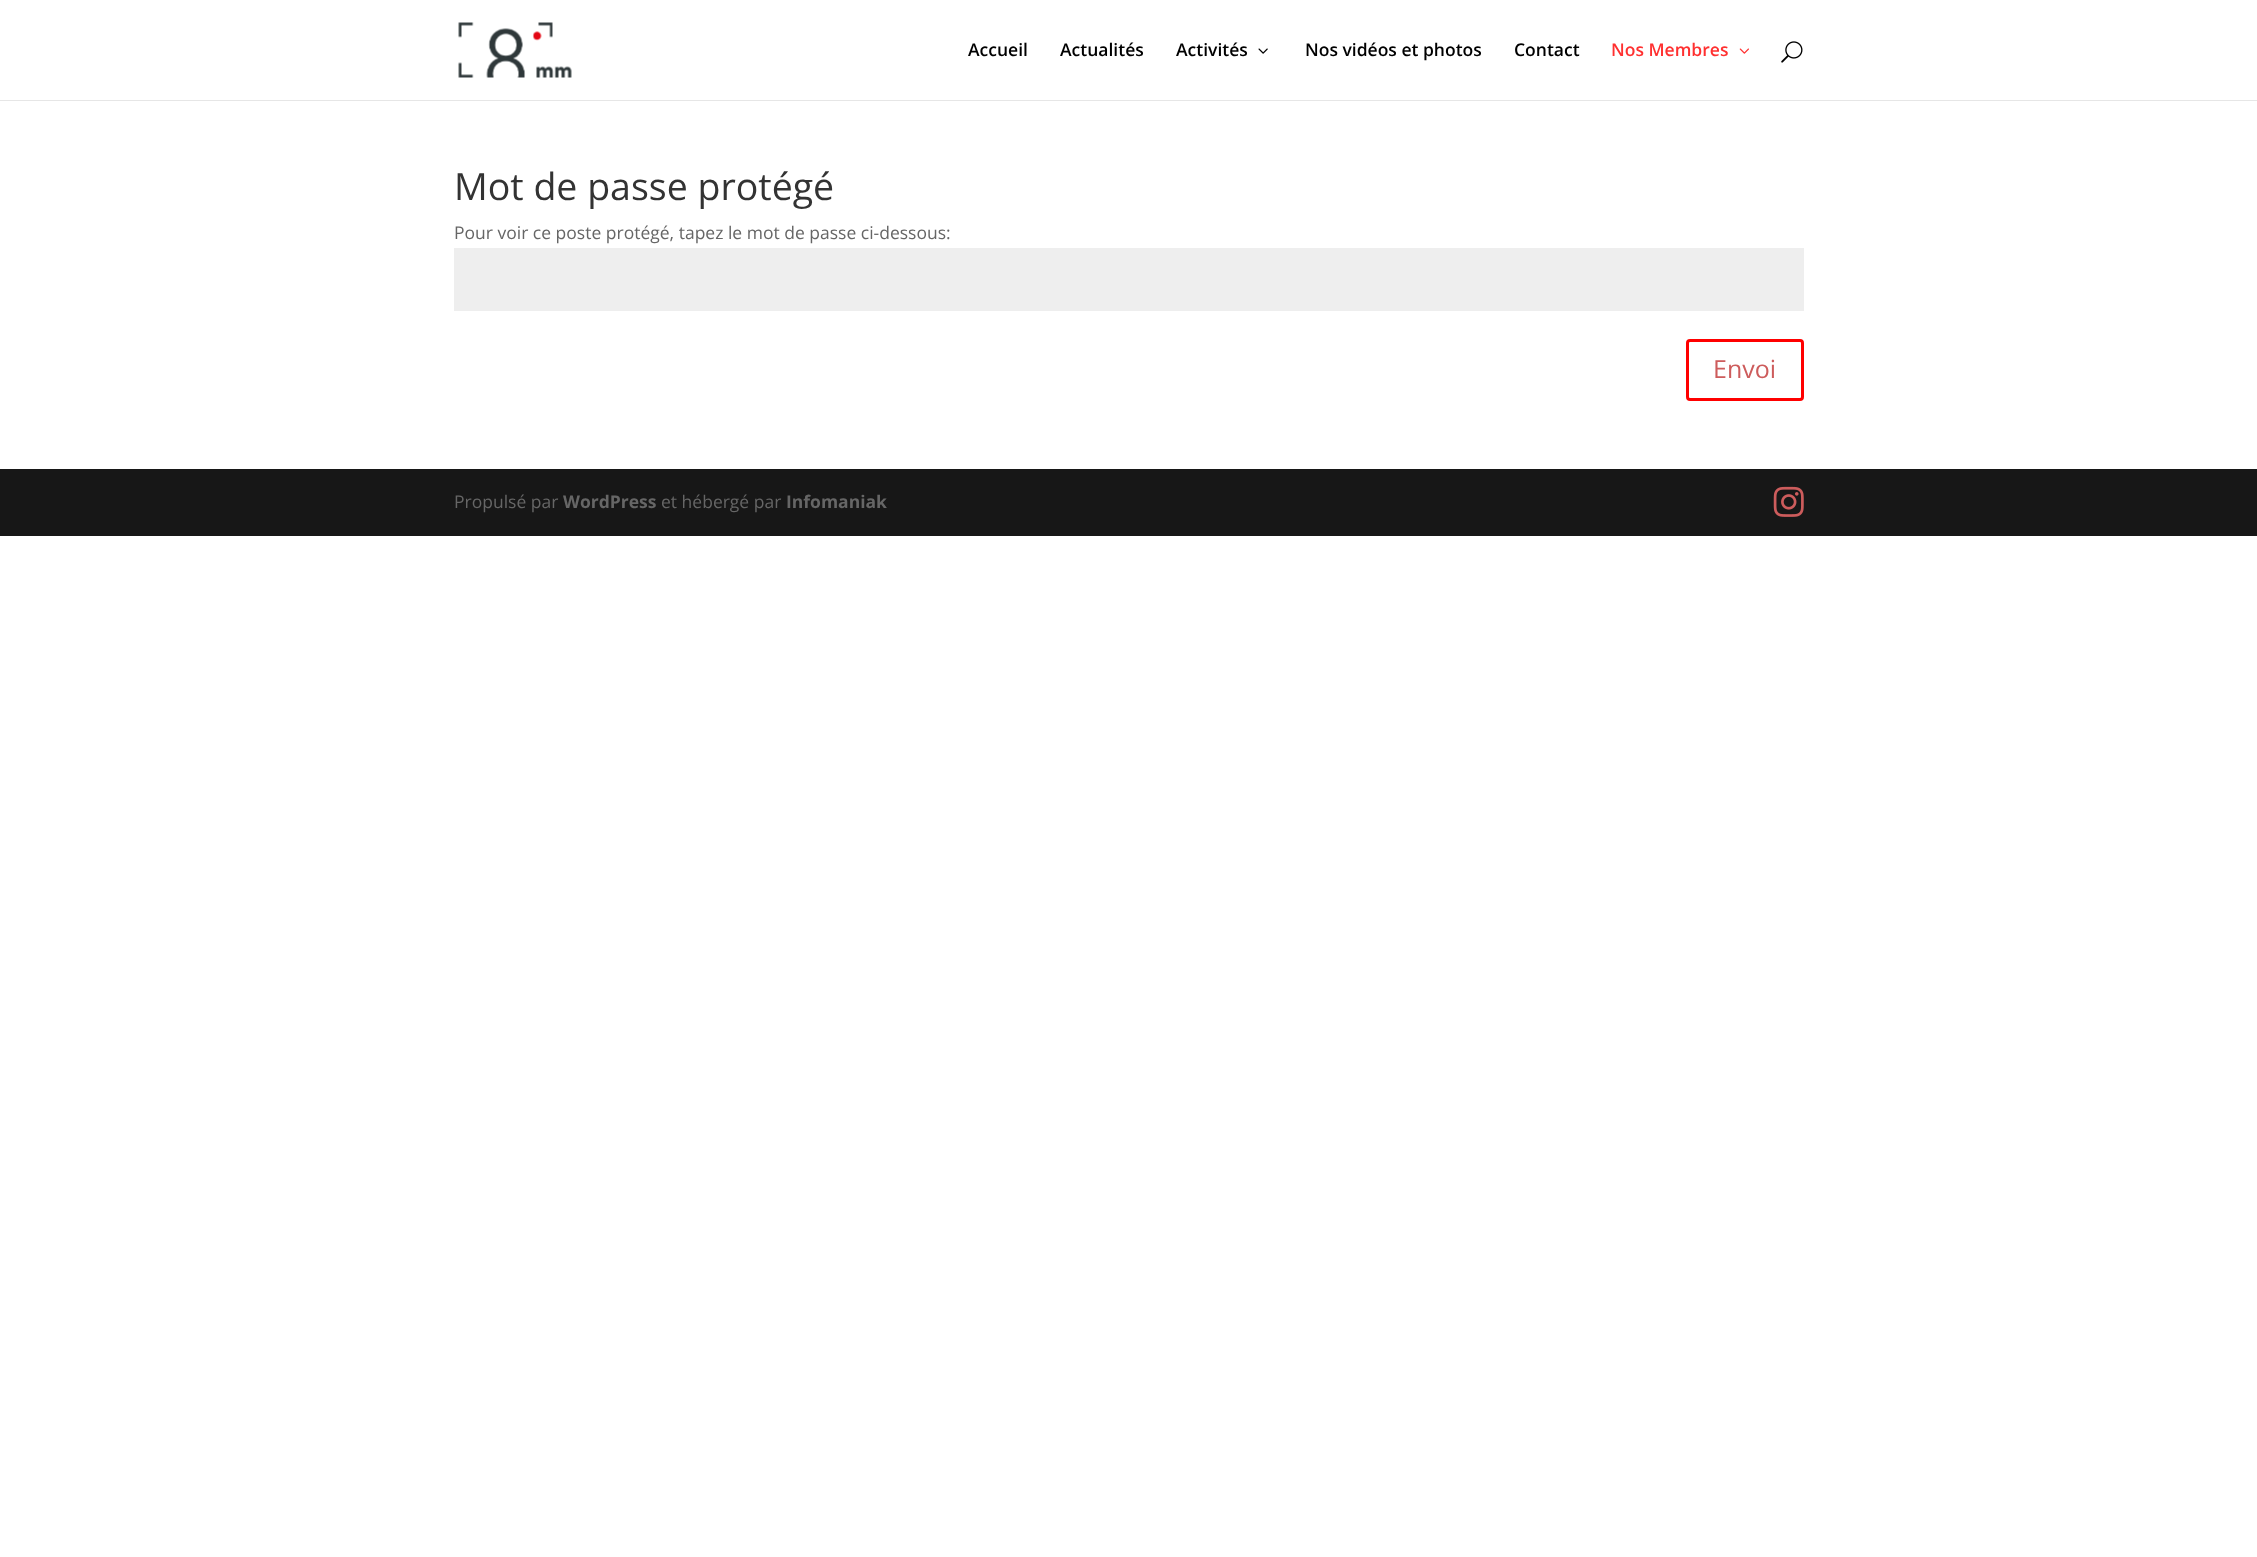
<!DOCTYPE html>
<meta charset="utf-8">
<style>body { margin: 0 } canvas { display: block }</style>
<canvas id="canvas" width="2257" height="1557"></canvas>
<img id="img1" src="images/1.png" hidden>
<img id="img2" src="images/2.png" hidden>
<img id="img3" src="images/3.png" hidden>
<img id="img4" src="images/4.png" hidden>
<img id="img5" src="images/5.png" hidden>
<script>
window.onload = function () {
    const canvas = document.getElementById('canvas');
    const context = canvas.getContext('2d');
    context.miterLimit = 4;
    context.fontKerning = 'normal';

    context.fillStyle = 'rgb(255, 255, 255)';
    context.fillRect(0, 0, 2257, 1557);
    context.fillStyle = 'rgb(230, 230, 230)';
    context.beginPath();
    context.moveTo(0, 100);
    context.lineTo(0, 101);
    context.lineTo(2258, 101);
    context.lineTo(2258, 1);
    context.lineTo(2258, 100);
    context.closePath();
    context.fill();
    context.drawImage(document.getElementById('img1'), 458, 22, 114, 56);
    context.drawImage(document.getElementById('img2'), 1258, 48, 10, 6);
    context.drawImage(document.getElementById('img3'), 1739, 48, 10, 6);
    context.drawImage(document.getElementById('img4'), 1781, 41, 22, 22);
    context.fillStyle = 'rgb(238, 238, 238)';
    context.fillRect(454, 248, 1350, 63);
    context.beginPath();
    context.roundRect(1687.5, 340.5, 115, 59, 2.5);
    context.strokeStyle = 'rgb(255, 0, 0)';
    context.lineWidth = 3;
    context.stroke();
    context.fillStyle = 'rgb(23, 23, 23)';
    context.fillRect(0, 469, 2257, 67);
    context.drawImage(document.getElementById('img5'), 1773, 486, 31, 31);
    context.font = '600 17.5px Open Sans';
    context.fillStyle = 'rgb(0, 0, 0)';
    context.fillText('Accueil', 968, 56);
    context.fillText('Actualités', 1060, 56);
    context.fillText('Activités', 1176, 56);
    context.fillText('Nos vidéos et photos', 1305, 56);
    context.fillText('Contact', 1514, 56);
    context.fillStyle = 'rgb(255, 48, 48)';
    context.fillText('Nos Membres', 1611, 56);
    context.font = '37.5px Open Sans';
    context.fillStyle = 'rgb(51, 51, 51)';
    context.fillText('Mot de passe protégé', 454, 200);
    context.font = '17.5px Open Sans';
    context.fillStyle = 'rgb(102, 102, 102)';
    context.fillText('Pour voir ce poste protégé, tapez le mot de passe ci-dessous:', 454, 239);
    context.font = '25px Open Sans';
    context.fillStyle = 'rgb(205, 92, 92)';
    context.fillText('Envoi', 1713, 378);
    context.font = '17.5px Open Sans';
    context.fillStyle = 'rgb(102, 102, 102)';
    context.fillText('Propulsé par', 454, 508);
    context.font = 'bold 17.5px Open Sans';
    context.fillText('WordPress', 563, 508);
    context.font = '17.5px Open Sans';
    context.fillText('et hébergé par', 661, 508);
    context.font = 'bold 17.5px Open Sans';
    context.fillText('Infomaniak', 786, 508);
};
</script>
